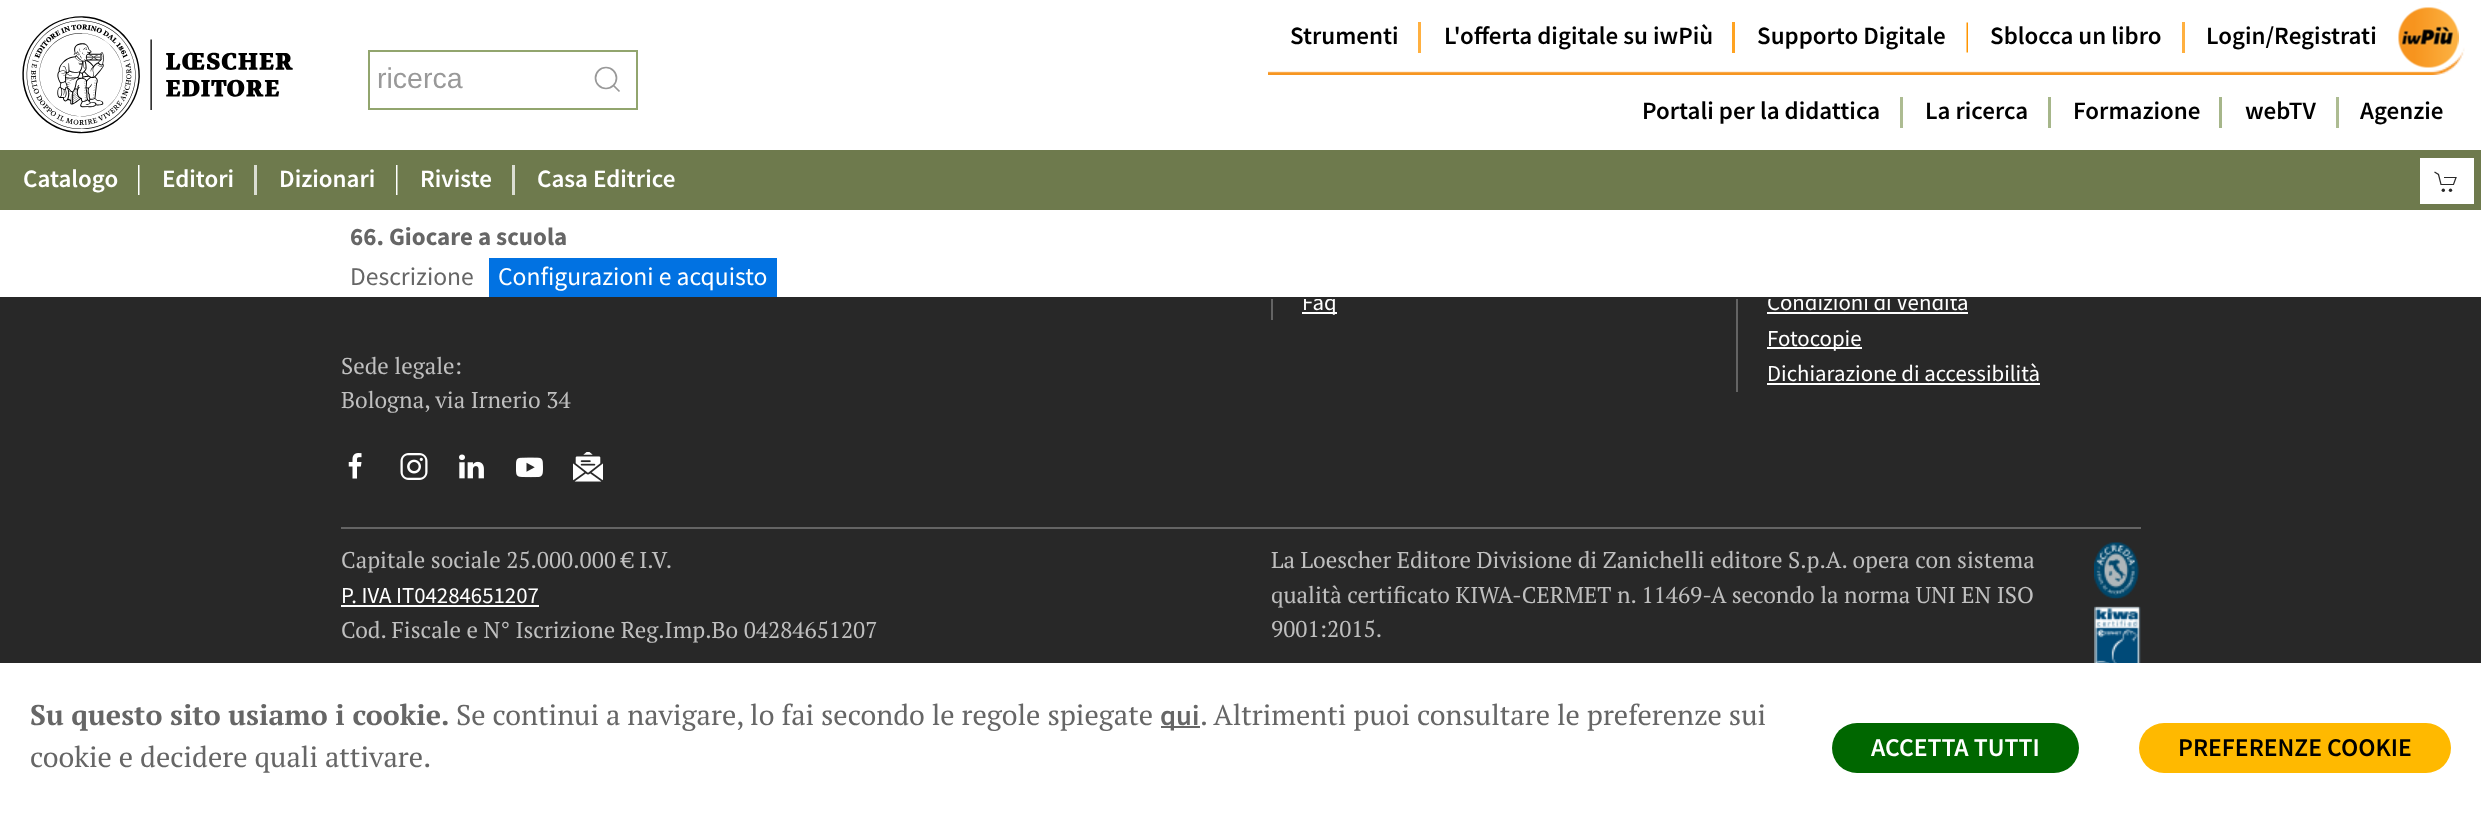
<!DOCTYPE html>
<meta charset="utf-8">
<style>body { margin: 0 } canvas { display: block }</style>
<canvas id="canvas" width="2481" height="813"></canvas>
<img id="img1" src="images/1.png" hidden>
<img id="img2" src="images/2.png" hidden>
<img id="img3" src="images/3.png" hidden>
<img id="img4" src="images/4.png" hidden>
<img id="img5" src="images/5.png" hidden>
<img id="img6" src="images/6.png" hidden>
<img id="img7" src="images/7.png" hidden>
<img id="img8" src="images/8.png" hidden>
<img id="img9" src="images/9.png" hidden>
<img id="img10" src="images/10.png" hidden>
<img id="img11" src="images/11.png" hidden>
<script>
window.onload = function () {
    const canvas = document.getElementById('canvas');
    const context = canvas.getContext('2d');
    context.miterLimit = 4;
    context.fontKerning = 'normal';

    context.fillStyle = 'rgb(40, 40, 40)';
    context.fillRect(0, 0, 2481, 813);
    context.fillStyle = 'rgb(255, 255, 255)';
    context.fillRect(0, 0, 2481, 150);
    context.drawImage(document.getElementById('img1'), 22, 16, 271, 118);
    context.strokeStyle = 'rgb(146, 165, 110)';
    context.lineWidth = 2;
    context.strokeRect(369, 51, 268, 58);
    context.beginPath();
    context.arc(606, 78, 10.5, 0, 2 * Math.PI);
    context.strokeStyle = 'rgb(153, 153, 153)';
    context.lineWidth = 1.7;
    context.stroke();
    context.beginPath();
    context.moveTo(613.5, 85.5);
    context.lineTo(619.5, 91.5);
    context.closePath();
    context.stroke();
    context.drawImage(document.getElementById('img2'), 1268, 2, 1197, 73);
    context.fillStyle = 'rgb(255, 176, 64)';
    context.fillRect(1418, 22, 3, 31);
    context.fillStyle = 'rgb(255, 163, 33)';
    context.fillRect(1732, 22, 3, 31);
    context.drawImage(document.getElementById('img3'), 1966, 22, 2, 31);
    context.fillStyle = 'rgb(255, 176, 64)';
    context.fillRect(2182, 22, 3, 31);
    context.drawImage(document.getElementById('img4'), 2398, 7, 61, 61);
    context.fillStyle = 'rgb(173, 188, 146)';
    context.fillRect(1900, 97, 3, 31);
    context.fillStyle = 'rgb(166, 182, 138)';
    context.fillRect(2048, 97, 3, 31);
    context.fillRect(2219, 97, 3, 31);
    context.fillStyle = 'rgb(173, 188, 146)';
    context.fillRect(2336, 97, 3, 31);
    context.fillStyle = 'rgb(110, 122, 77)';
    context.fillRect(0, 150, 2481, 60);
    context.drawImage(document.getElementById('img5'), 138, 165, 2, 30);
    context.fillStyle = 'rgb(219, 222, 211)';
    context.fillRect(254, 165, 3, 30);
    context.drawImage(document.getElementById('img5'), 396, 165, 2, 30);
    context.fillRect(512, 165, 3, 30);
    context.fillStyle = 'rgb(255, 255, 255)';
    context.fillRect(2420, 158, 54, 46);
    context.beginPath();
    context.moveTo(2434.5, 172);
    context.lineTo(2438.5, 174.5);
    context.lineTo(2441, 184.5);
    context.lineTo(2453.5, 184.5);
    context.lineTo(2456, 177.5);
    context.lineTo(2444, 177.5);
    context.strokeStyle = 'rgb(40, 40, 40)';
    context.lineWidth = 1.2;
    context.stroke();
    context.fillStyle = 'rgb(40, 40, 40)';
    context.beginPath();
    context.arc(2443.3, 190.3, 1.7, 0, 2 * Math.PI);
    context.fill();
    context.beginPath();
    context.arc(2450.5, 190.3, 1.7, 0, 2 * Math.PI);
    context.fill();
    context.fillStyle = 'rgb(255, 255, 255)';
    context.fillRect(0, 210, 2481, 87);
    context.fillStyle = 'rgb(1, 114, 226)';
    context.fillRect(489, 258, 288, 39);
    context.fillStyle = 'rgb(100, 100, 100)';
    context.fillRect(1271, 299, 2, 21);
    context.fillStyle = 'rgb(255, 255, 255)';
    context.fillRect(1302, 312, 35, 2);
    context.fillStyle = 'rgb(100, 100, 100)';
    context.fillRect(1736, 299, 2, 93);
    context.fillStyle = 'rgb(255, 255, 255)';
    context.fillRect(1767, 312, 201, 2);
    context.fillRect(1767, 347, 95, 2);
    context.fillRect(1767, 383, 273, 2);
    context.drawImage(document.getElementById('img6'), 348, 453, 14, 26);
    context.drawImage(document.getElementById('img7'), 400, 453, 28, 27);
    context.drawImage(document.getElementById('img8'), 459, 454, 25, 25);
    context.drawImage(document.getElementById('img9'), 516, 457, 27, 21);
    context.drawImage(document.getElementById('img10'), 573, 452, 30, 30);
    context.fillStyle = 'rgb(100, 100, 100)';
    context.fillRect(341, 527, 1800, 2);
    context.fillStyle = 'rgb(255, 255, 255)';
    context.fillRect(341, 605, 198, 2);
    context.drawImage(document.getElementById('img11'), 2094, 542, 47, 121);
    context.fillRect(0, 663, 2481, 150);
    context.fillStyle = 'rgb(102, 102, 102)';
    context.fillRect(1161, 726, 39, 2);
    context.fillStyle = 'rgb(0, 103, 0)';
    context.beginPath();
    context.roundRect(1832, 723, 247, 50, 25);
    context.fill();
    context.fillStyle = 'rgb(255, 185, 0)';
    context.beginPath();
    context.roundRect(2139, 723, 312, 50, 25);
    context.fill();
    context.font = '28.5px Liberation Sans';
    context.fillStyle = 'rgb(153, 153, 153)';
    context.fillText('ricerca', 377, 88);
    context.font = '600 25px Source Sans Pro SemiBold';
    context.fillStyle = 'rgb(0, 0, 0)';
    context.fillText('Strumenti', 1290, 44);
    context.fillText('L\'offerta digitale su iwPiù', 1444, 44);
    context.fillText('Supporto Digitale', 1757, 44);
    context.fillText('Sblocca un libro', 1990, 44);
    context.fillText('Login/Registrati', 2206, 44);
    context.fillText('Portali per la didattica', 1642, 119);
    context.fillText('La ricerca', 1925, 119);
    context.fillText('Formazione', 2073, 119);
    context.fillText('webTV', 2245, 119);
    context.fillText('Agenzie', 2360, 119);
    context.fillStyle = 'rgb(255, 255, 255)';
    context.fillText('Catalogo', 23, 187);
    context.fillText('Editori', 162, 187);
    context.fillText('Dizionari', 279, 187);
    context.fillText('Riviste', 420, 187);
    context.fillText('Casa Editrice', 537, 187);
    context.font = 'bold 25px Source Sans Pro';
    context.fillStyle = 'rgb(102, 102, 102)';
    context.fillText('66. Giocare a scuola', 350, 245);
    context.font = '25.6px Source Sans Pro';
    context.fillText('Descrizione', 350, 285);
    context.fillStyle = 'rgb(255, 255, 255)';
    context.fillText('Configurazioni e acquisto', 498, 285);
    context.font = '22.8px Source Sans Pro';
    context.fillText('Faq', 1302, 310);
    context.fillText('Condizioni di Vendita', 1767, 310);
    context.fillStyle = 'rgb(40, 40, 40)';
    context.fillRect(1304, 297, 661, 2);
    context.fillStyle = 'rgb(255, 255, 255)';
    context.fillText('Fotocopie', 1767, 346);
    context.fillText('Dichiarazione di accessibilità', 1767, 381);
    context.font = '22.8px PT Serif';
    context.fillStyle = 'rgb(191, 191, 191)';
    context.fillText('Sede legale:', 341, 374);
    context.fillText('Bologna, via Irnerio 34', 341, 408);
    context.fillText('Capitale sociale 25.000.000 € I.V.', 341, 568);
    context.font = '22.8px Source Sans Pro';
    context.fillStyle = 'rgb(255, 255, 255)';
    context.fillText('P. IVA IT04284651207', 341, 603);
    context.font = '22.8px PT Serif';
    context.fillStyle = 'rgb(191, 191, 191)';
    context.fillText('Cod. Fiscale e N° Iscrizione Reg.Imp.Bo 04284651207', 341, 638);
    context.fillText('La Loescher Editore Divisione di Zanichelli editore S.p.A. opera con sistema', 1271, 568);
    context.fillText('qualità certificato KIWA-CERMET n. 11469-A secondo la norma UNI EN ISO', 1271, 603);
    context.fillText('9001:2015.', 1271, 637);
    context.font = 'bold 28.5px PT Serif';
    context.fillStyle = 'rgb(102, 102, 102)';
    context.fillText('Su questo sito usiamo i cookie.', 30, 725);
    context.font = '28.5px PT Serif';
    context.fillText('Se continui a navigare, lo fai secondo le regole spiegate', 456, 725);
    context.font = '600 28.5px Source Sans Pro SemiBold';
    context.fillText('qui', 1160, 725);
    context.font = '28.5px PT Serif';
    context.fillText('. Altrimenti puoi consultare le preferenze sui', 1200, 725);
    context.fillText('cookie e decidere quali attivare.', 30, 767);
    context.font = '600 25.6px Source Sans Pro SemiBold';
    context.fillStyle = 'rgb(255, 255, 255)';
    context.fillText('ACCETTA TUTTI', 1871, 756);
    context.fillStyle = 'rgb(0, 0, 0)';
    context.fillText('PREFERENZE COOKIE', 2178, 756);
};
</script>
